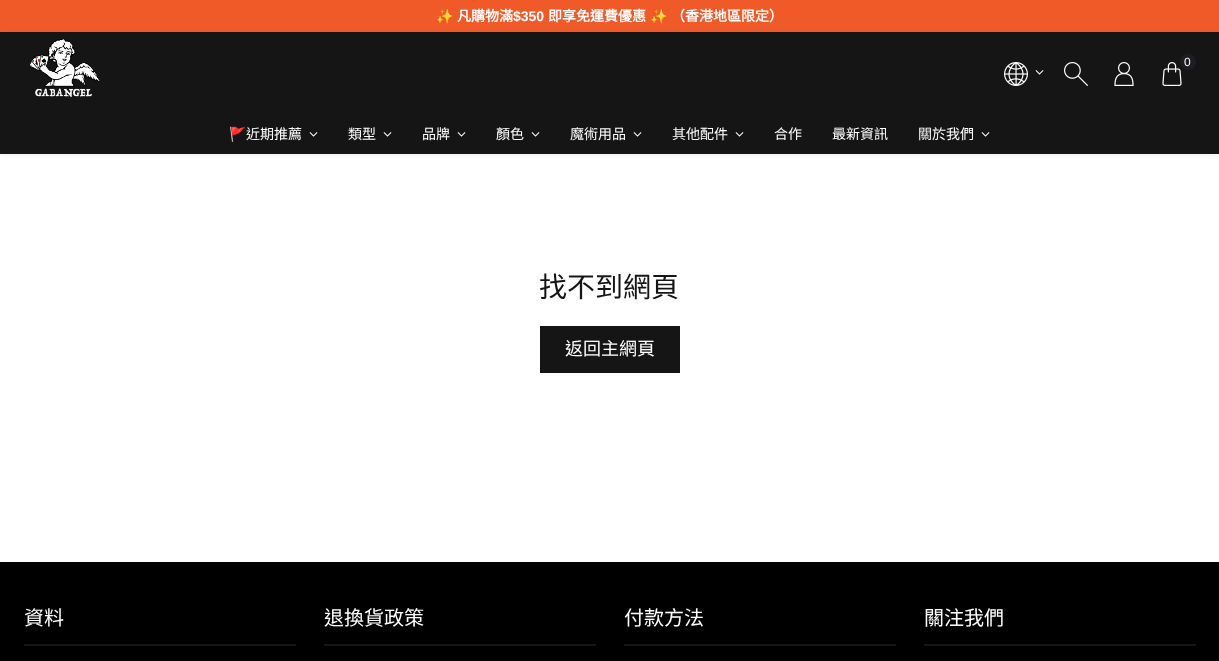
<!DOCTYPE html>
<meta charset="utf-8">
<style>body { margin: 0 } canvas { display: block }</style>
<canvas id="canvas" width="1219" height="661"></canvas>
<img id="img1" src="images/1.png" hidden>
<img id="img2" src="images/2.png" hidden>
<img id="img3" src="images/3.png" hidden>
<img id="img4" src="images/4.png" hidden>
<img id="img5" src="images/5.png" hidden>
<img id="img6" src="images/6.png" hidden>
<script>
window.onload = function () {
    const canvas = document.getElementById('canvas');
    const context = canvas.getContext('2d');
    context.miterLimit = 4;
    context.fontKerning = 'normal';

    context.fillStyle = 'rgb(255, 255, 255)';
    context.fillRect(0, 0, 1219, 661);
    context.fillStyle = 'rgb(240, 90, 40)';
    context.fillRect(0, 0, 1219, 32);
    context.fillStyle = 'rgba(0, 0, 0, 0.05)';
    context.filter = 'blur(2px)';
    context.beginPath();
    context.rect(0, 34, 1219, 122);
    context.fill();
    context.filter = 'none';
    context.fillStyle = 'rgb(21, 21, 21)';
    context.fillRect(0, 32, 1219, 122);
    context.drawImage(document.getElementById('img1'), 30, 39, 71, 58);
    context.drawImage(document.getElementById('img2'), 1004, 62, 24, 24);
    context.drawImage(document.getElementById('img3'), 1035, 70, 9, 5);
    context.drawImage(document.getElementById('img4'), 1064, 62, 24, 24);
    context.drawImage(document.getElementById('img5'), 1114, 62, 20, 24);
    context.drawImage(document.getElementById('img6'), 1162, 62, 20, 24);
    context.fillStyle = 'rgb(29, 29, 34)';
    context.filter = 'blur(0.5px)';
    context.beginPath();
    context.roundRect(1180, 54, 16, 16, 8);
    context.fill();
    context.filter = 'none';
    context.beginPath();
    context.arc(1188, 62, 8, 0, 2 * Math.PI);
    context.fill();
    context.drawImage(document.getElementById('img3'), 309, 132, 9, 5);
    context.drawImage(document.getElementById('img3'), 383, 132, 9, 5);
    context.drawImage(document.getElementById('img3'), 457, 132, 9, 5);
    context.drawImage(document.getElementById('img3'), 531, 132, 9, 5);
    context.drawImage(document.getElementById('img3'), 633, 132, 9, 5);
    context.drawImage(document.getElementById('img3'), 735, 132, 9, 5);
    context.drawImage(document.getElementById('img3'), 981, 132, 9, 5);
    context.fillStyle = 'rgb(21, 21, 21)';
    context.fillRect(540, 326, 140, 47);
    context.fillStyle = 'rgb(0, 0, 0)';
    context.fillRect(0, 562, 1219, 99);
    context.fillStyle = 'rgb(21, 21, 21)';
    context.fillRect(24, 644, 272, 2);
    context.fillRect(324, 644, 272, 2);
    context.fillRect(624, 644, 272, 2);
    context.fillRect(924, 644, 272, 2);
    context.font = 'bold 14px Noto Color Emoji';
    context.fillStyle = 'rgb(255, 255, 255)';
    context.fillText('✨', 436, 21);
    context.font = 'bold 14px Noto Sans CJK HK';
    context.fillText('凡購物滿', 457, 21);
    context.font = 'bold 14px Liberation Sans';
    context.fillText('$350', 513, 21);
    context.font = 'bold 14px Noto Sans CJK HK';
    context.fillText('即享免運費優惠', 548, 21);
    context.font = 'bold 14px Noto Color Emoji';
    context.fillText('✨', 650, 21);
    context.font = 'bold 14px Noto Sans CJK HK';
    context.fillText('（香港地區限定）', 671, 21);
    context.font = '12px Liberation Sans';
    context.fillText('0', 1184, 66);
    context.font = '14px Noto Color Emoji';
    context.fillText('🚩', 229, 139);
    context.font = '14px Noto Sans CJK HK';
    context.fillText('近期推薦', 246, 139);
    context.fillText('類型', 348, 139);
    context.fillText('品牌', 422, 139);
    context.fillText('顏色', 496, 139);
    context.fillText('魔術用品', 570, 139);
    context.fillText('其他配件', 672, 139);
    context.fillText('合作', 774, 139);
    context.fillText('最新資訊', 832, 139);
    context.fillText('關於我們', 918, 139);
    context.font = '28px Noto Sans CJK HK';
    context.fillStyle = 'rgb(21, 21, 21)';
    context.fillText('找不到網頁', 539, 297);
    context.font = '18px Noto Sans CJK HK';
    context.fillStyle = 'rgb(255, 255, 255)';
    context.fillText('返回主網頁', 565, 355);
    context.font = '20px Noto Sans CJK HK';
    context.fillText('資料', 24, 625);
    context.fillText('退換貨政策', 324, 625);
    context.fillText('付款方法', 624, 625);
    context.fillText('關注我們', 924, 625);
};
</script>
